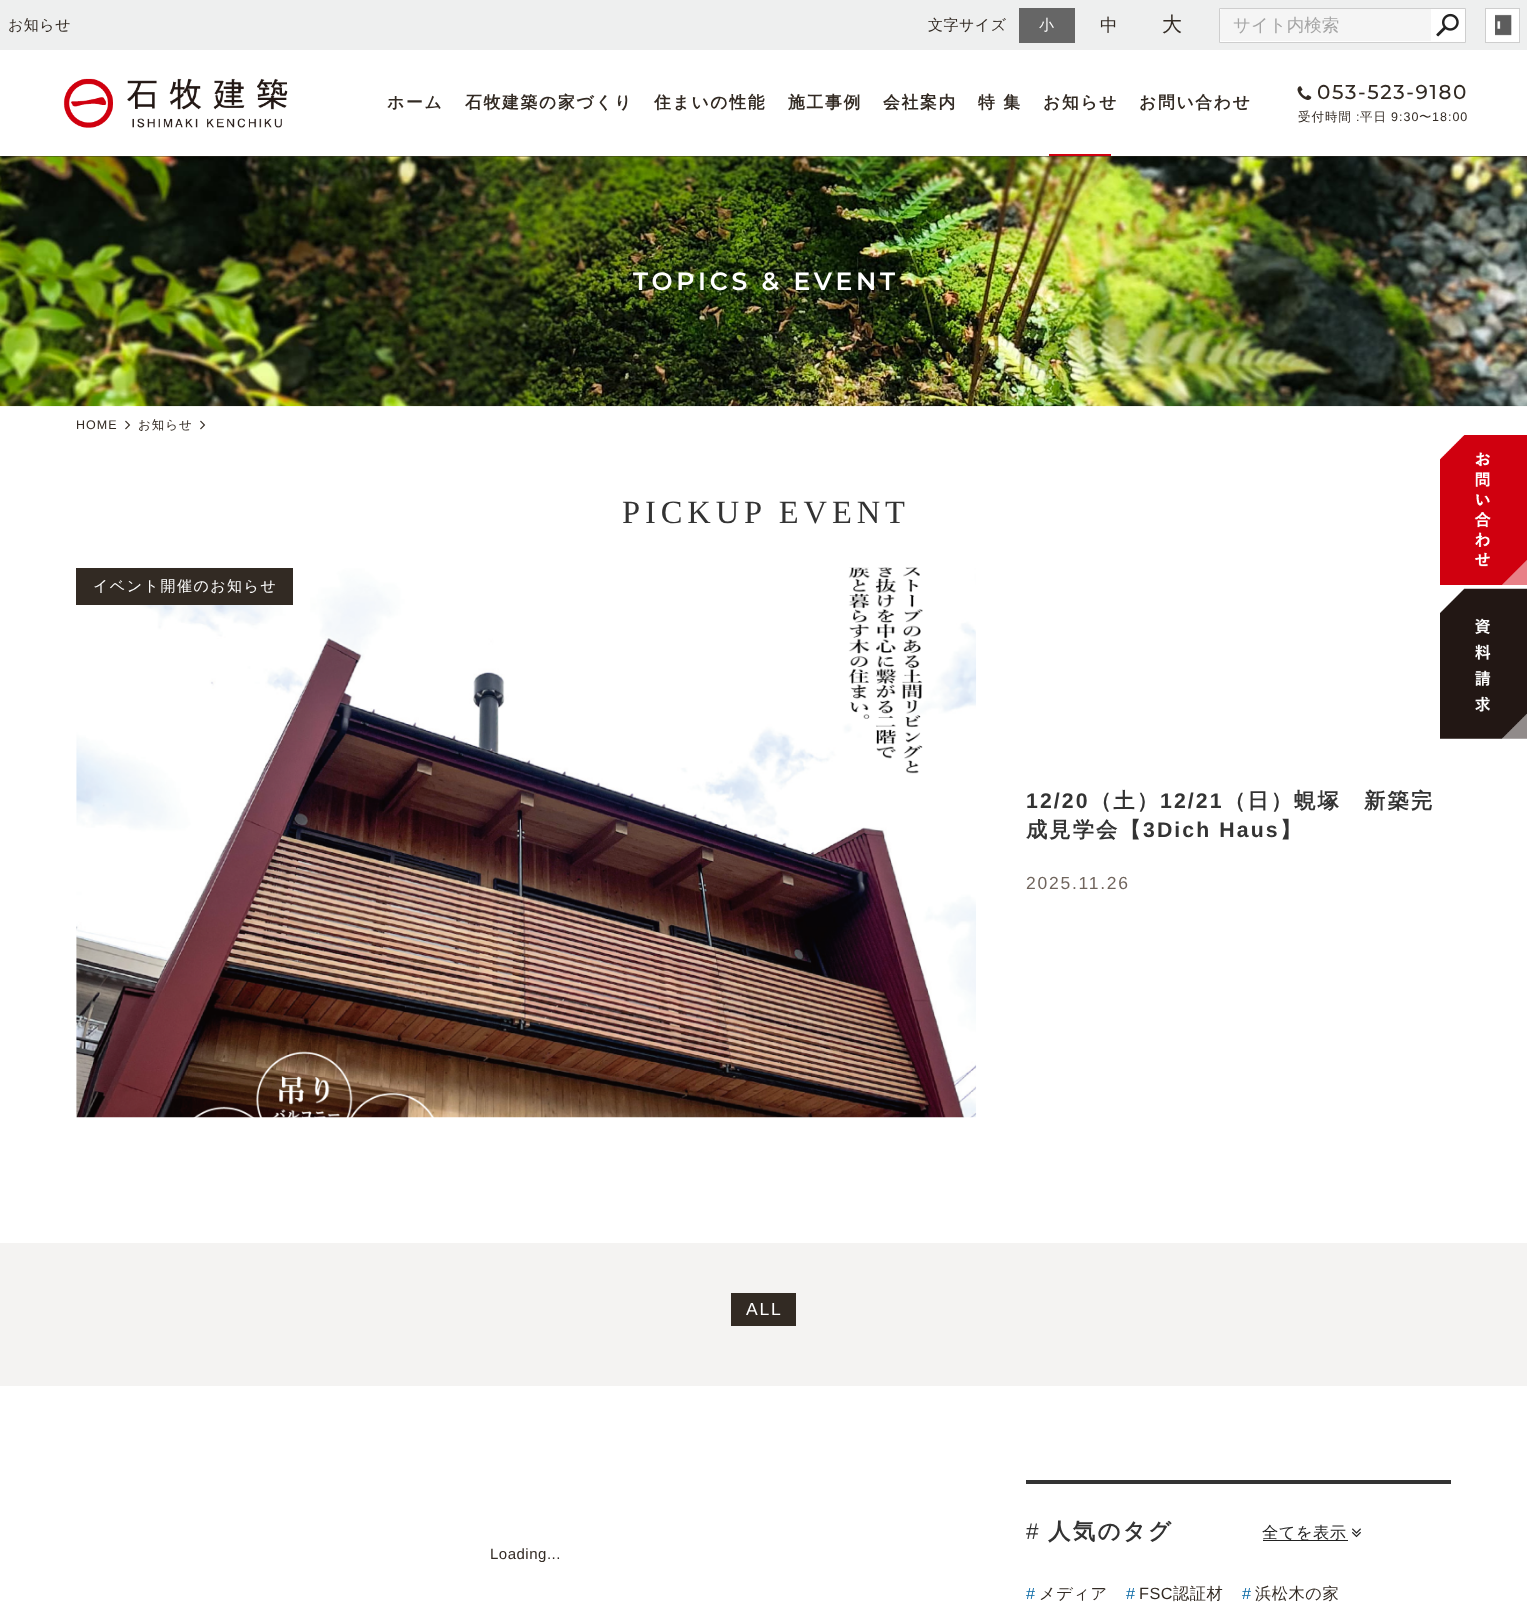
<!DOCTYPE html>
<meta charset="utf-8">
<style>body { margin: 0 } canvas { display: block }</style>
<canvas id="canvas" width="1527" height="1611"></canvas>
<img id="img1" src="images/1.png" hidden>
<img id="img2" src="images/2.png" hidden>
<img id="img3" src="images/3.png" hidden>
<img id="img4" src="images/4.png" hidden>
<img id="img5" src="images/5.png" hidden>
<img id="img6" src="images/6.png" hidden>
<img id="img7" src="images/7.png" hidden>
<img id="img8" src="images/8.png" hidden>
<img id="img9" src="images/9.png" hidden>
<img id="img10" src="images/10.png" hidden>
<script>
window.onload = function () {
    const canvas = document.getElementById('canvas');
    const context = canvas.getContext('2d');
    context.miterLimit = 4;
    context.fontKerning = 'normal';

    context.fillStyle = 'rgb(255, 255, 255)';
    context.fillRect(0, 0, 1527, 1611);
    context.fillStyle = 'rgb(238, 239, 239)';
    context.fillRect(0, 0, 1527, 50);
    context.fillStyle = 'rgb(102, 102, 102)';
    context.fillRect(1019, 8, 56, 35);
    context.fillStyle = 'rgb(255, 255, 255)';
    context.beginPath();
    context.rect(1219.5, 8.5, 246, 34);
    context.fill();
    context.strokeStyle = 'rgb(206, 206, 206)';
    context.stroke();
    context.fillStyle = 'rgb(245, 245, 245)';
    context.beginPath();
    context.roundRect(1220, 9, 211, 32, [2.5, 0, 0, 2.5]);
    context.fill();
    context.drawImage(document.getElementById('img1'), 1436, 13, 23, 24);
    context.fillStyle = 'rgb(255, 255, 255)';
    context.fillRect(1486, 9, 33, 33);
    context.drawImage(document.getElementById('img2'), 1495, 14, 17, 22);
    context.strokeRect(1485.5, 8.5, 34, 34);
    context.drawImage(document.getElementById('img3'), 63, 78, 225, 50);
    context.fillStyle = 'rgb(208, 0, 15)';
    context.fillRect(1049, 154, 62, 2);
    context.drawImage(document.getElementById('img4'), 1297, 86, 15, 14);
    context.fillStyle = 'rgb(50, 42, 35)';
    context.fillRect(0, 156, 1527, 1);
    context.drawImage(document.getElementById('img5'), 0, 156, 1527, 251);
    context.drawImage(document.getElementById('img6'), 125, 420, 6, 10);
    context.drawImage(document.getElementById('img6'), 200, 420, 6, 10);
    context.drawImage(document.getElementById('img7'), 76, 567, 901, 551);
    context.fillRect(76, 568, 217, 37);
    context.fillStyle = 'rgb(244, 243, 242)';
    context.fillRect(0, 1243, 1527, 143);
    context.fillStyle = 'rgb(50, 42, 35)';
    context.fillRect(731, 1293, 65, 33);
    context.fillStyle = 'rgb(51, 51, 51)';
    context.fillRect(1026, 1480, 425, 4);
    context.fillStyle = 'rgb(34, 34, 34)';
    context.fillRect(1263, 1540, 85, 1);
    context.drawImage(document.getElementById('img8'), 1352, 1528, 9, 10);
    context.drawImage(document.getElementById('img9'), 1440, 435, 87, 150);
    context.drawImage(document.getElementById('img10'), 1440, 588, 87, 151);
    context.letterSpacing = '0.5px';
    context.font = '500 15px WenQuanYi Zen Hei';
    context.fillStyle = 'rgb(50, 42, 35)';
    context.fillText('お知らせ', 8, 30);
    context.fillText('文字サイズ', 928, 30);
    context.fillStyle = 'rgb(255, 255, 255)';
    context.fillText('小', 1039, 30);
    context.font = '500 17.5px WenQuanYi Zen Hei';
    context.fillStyle = 'rgb(50, 42, 35)';
    context.fillText('中', 1100, 31);
    context.font = '500 20px WenQuanYi Zen Hei';
    context.fillText('大', 1162, 31);
    context.letterSpacing = '0px';
    context.font = '500 17.5px WenQuanYi Zen Hei';
    context.fillStyle = 'rgb(165, 165, 165)';
    context.fillText('サイト内検索', 1233, 31);
    context.letterSpacing = '1.75px';
    context.font = 'bold 16.75px WenQuanYi Zen Hei';
    context.fillStyle = 'rgb(50, 42, 35)';
    context.fillText('ホーム', 387, 108);
    context.fillText('石牧建築の家づくり', 465, 108);
    context.fillText('住まいの性能', 654, 108);
    context.fillText('施工事例', 788, 108);
    context.fillText('会社案内', 883, 108);
    context.fillText('特 集', 978, 108);
    context.fillText('お知らせ', 1043, 108);
    context.fillText('お問い合わせ', 1139, 108);
    context.letterSpacing = '1.6px';
    context.font = '500 20px Montserrat';
    context.fillText('053-523-9180', 1317, 99);
    context.letterSpacing = '1px';
    context.font = '500 12.5px WenQuanYi Zen Hei';
    context.fillText('受付時間', 1298, 121);
    context.font = '12.5px Liberation Sans';
    context.fillText(':', 1356, 121);
    context.font = '500 12.5px WenQuanYi Zen Hei';
    context.fillText('平日', 1360, 121);
    context.font = '12.5px Liberation Sans';
    context.fillText('9:30', 1391, 121);
    context.font = '500 12.5px WenQuanYi Zen Hei';
    context.fillText('〜', 1419, 121);
    context.font = '12.5px Liberation Sans';
    context.fillText('18:00', 1432, 121);
    context.letterSpacing = '3.75px';
    context.font = '600 25px Montserrat';
    context.fillStyle = 'rgb(255, 255, 255)';
    context.fillText('TOPICS & EVENT', 633, 290);
    context.letterSpacing = '1px';
    context.font = '12.5px Liberation Sans';
    context.fillStyle = 'rgb(50, 42, 35)';
    context.fillText('HOME', 76, 429);
    context.font = '500 12.5px WenQuanYi Zen Hei';
    context.fillText('お知らせ', 138, 429);
    context.letterSpacing = '4.9px';
    context.font = '32.5px Liberation Serif';
    context.fillStyle = 'rgb(51, 51, 51)';
    context.fillText('PICKUP EVENT', 622, 523);
    context.letterSpacing = '1.5px';
    context.font = '500 15px WenQuanYi Zen Hei';
    context.fillStyle = 'rgb(255, 255, 255)';
    context.fillText('イベント開催のお知らせ', 93, 591);
    context.letterSpacing = '2.1px';
    context.font = 'bold 21.25px Liberation Sans';
    context.fillStyle = 'rgb(51, 51, 51)';
    context.fillText('12/20', 1026, 808);
    context.font = 'bold 21.25px WenQuanYi Zen Hei';
    context.fillText('（土）', 1090, 808);
    context.font = 'bold 21.25px Liberation Sans';
    context.fillText('12/21', 1160, 808);
    context.font = 'bold 21.25px WenQuanYi Zen Hei';
    context.fillText('（日）蜆塚　新築完', 1224, 808);
    context.fillText('成見学会【', 1026, 837);
    context.font = 'bold 21.25px Liberation Sans';
    context.fillText('3Dich Haus', 1143, 837);
    context.font = 'bold 21.25px WenQuanYi Zen Hei';
    context.fillText('】', 1280, 837);
    context.letterSpacing = '1.75px';
    context.font = '17.5px Liberation Sans';
    context.fillStyle = 'rgb(112, 101, 93)';
    context.fillText('2025.11.26', 1026, 889);
    context.fillStyle = 'rgb(255, 255, 255)';
    context.fillText('ALL', 746, 1315);
    context.letterSpacing = '0.5px';
    context.font = '15px Liberation Sans';
    context.fillStyle = 'rgb(50, 42, 35)';
    context.fillText('Loading...', 490, 1559);
    context.letterSpacing = '2.25px';
    context.font = '22.5px Liberation Sans';
    context.fillStyle = 'rgb(51, 51, 51)';
    context.fillText('#', 1026, 1539);
    context.font = 'bold 22.5px WenQuanYi Zen Hei';
    context.fillText('人気のタグ', 1048, 1539);
    context.letterSpacing = '0.5px';
    context.font = '500 16.25px WenQuanYi Zen Hei';
    context.fillStyle = 'rgb(34, 34, 34)';
    context.fillText('全てを表示', 1262, 1538);
    context.font = '16.25px Liberation Sans';
    context.fillStyle = 'rgb(8, 104, 165)';
    context.fillText('#', 1026, 1599);
    context.font = '500 16.25px WenQuanYi Zen Hei';
    context.fillStyle = 'rgb(50, 42, 35)';
    context.fillText('メディア', 1039, 1599);
    context.font = '16.25px Liberation Sans';
    context.fillStyle = 'rgb(8, 104, 165)';
    context.fillText('#', 1126, 1599);
    context.fillStyle = 'rgb(50, 42, 35)';
    context.fillText('FSC', 1139, 1599);
    context.font = '500 16.25px WenQuanYi Zen Hei';
    context.fillText('認証材', 1173, 1599);
    context.font = '16.25px Liberation Sans';
    context.fillStyle = 'rgb(8, 104, 165)';
    context.fillText('#', 1242, 1599);
    context.font = '500 16.25px WenQuanYi Zen Hei';
    context.fillStyle = 'rgb(50, 42, 35)';
    context.fillText('浜松木の家', 1255, 1599);
};
</script>
